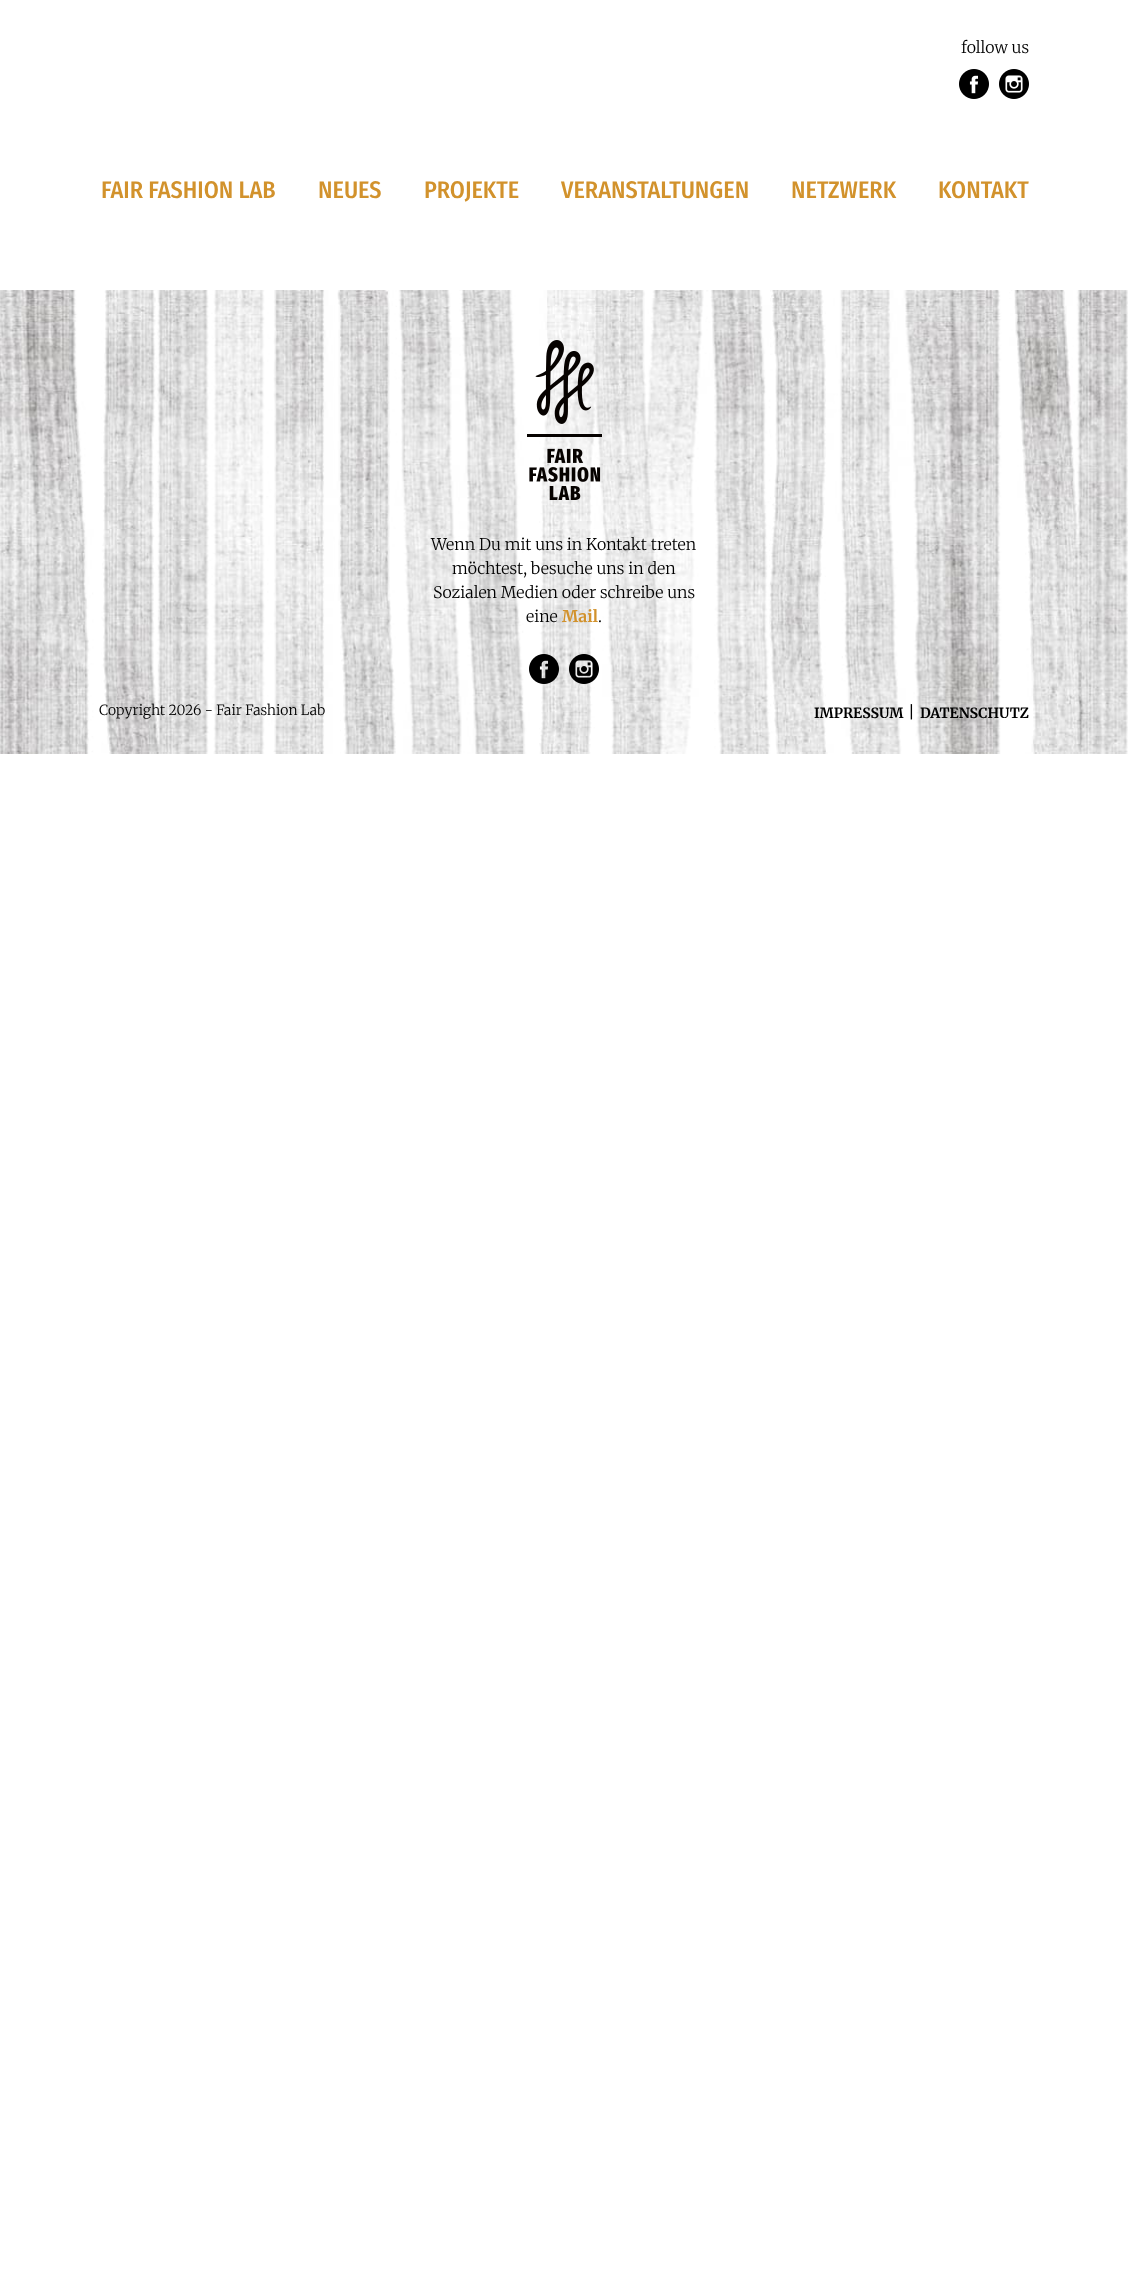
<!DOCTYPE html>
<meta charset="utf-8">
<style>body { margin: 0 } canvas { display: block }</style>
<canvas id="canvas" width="1128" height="2270"></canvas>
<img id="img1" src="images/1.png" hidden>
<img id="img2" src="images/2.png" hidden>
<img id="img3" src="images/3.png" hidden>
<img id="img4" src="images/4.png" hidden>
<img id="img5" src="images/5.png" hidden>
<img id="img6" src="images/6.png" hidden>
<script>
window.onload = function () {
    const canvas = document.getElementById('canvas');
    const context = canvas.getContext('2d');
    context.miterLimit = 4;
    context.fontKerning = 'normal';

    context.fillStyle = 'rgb(255, 255, 255)';
    context.fillRect(0, 0, 1128, 2270);
    context.drawImage(document.getElementById('img1'), 959, 69, 30, 30);
    context.drawImage(document.getElementById('img2'), 999, 69, 30, 30);
    context.drawImage(document.getElementById('img3'), 0, 290, 1128, 464);
    context.drawImage(document.getElementById('img4'), 527, 340, 75, 160);
    context.drawImage(document.getElementById('img5'), 529, 654, 30, 30);
    context.drawImage(document.getElementById('img6'), 569, 654, 30, 30);
    context.font = '300 16px Merriweather';
    context.fillStyle = 'rgb(0, 0, 0)';
    context.fillText('follow us', 961, 53);
    context.font = '500 24px Fira Sans Condensed';
    context.fillStyle = 'rgb(210, 146, 44)';
    context.fillText('FAIR FASHION LAB', 101, 198);
    context.fillText('NEUES', 318, 198);
    context.fillText('PROJEKTE', 424, 198);
    context.fillText('VERANSTALTUNGEN', 561, 198);
    context.fillText('NETZWERK', 791, 198);
    context.fillText('KONTAKT', 938, 198);
    context.font = '300 16px Merriweather';
    context.fillStyle = 'rgb(0, 0, 0)';
    context.fillText('Wenn Du mit uns in Kontakt treten', 431, 550);
    context.fillText('möchtest, besuche uns in den', 452, 574);
    context.fillText('Sozialen Medien oder schreibe uns', 433, 598);
    context.fillText('eine', 526, 622);
    context.font = 'bold 16px Merriweather';
    context.fillStyle = 'rgb(210, 146, 44)';
    context.fillText('Mail', 562, 622);
    context.font = '300 16px Merriweather';
    context.fillStyle = 'rgb(0, 0, 0)';
    context.fillText('.', 598, 622);
    context.font = '300 14px Merriweather';
    context.fillText('Copyright 2026 - Fair Fashion Lab', 99, 715);
    context.font = 'bold 14px Merriweather';
    context.fillText('IMPRESSUM', 814, 718);
    context.font = '16px Merriweather';
    context.fillText('|', 908, 718);
    context.font = 'bold 14px Merriweather';
    context.fillText('DATENSCHUTZ', 920, 718);
};
</script>
